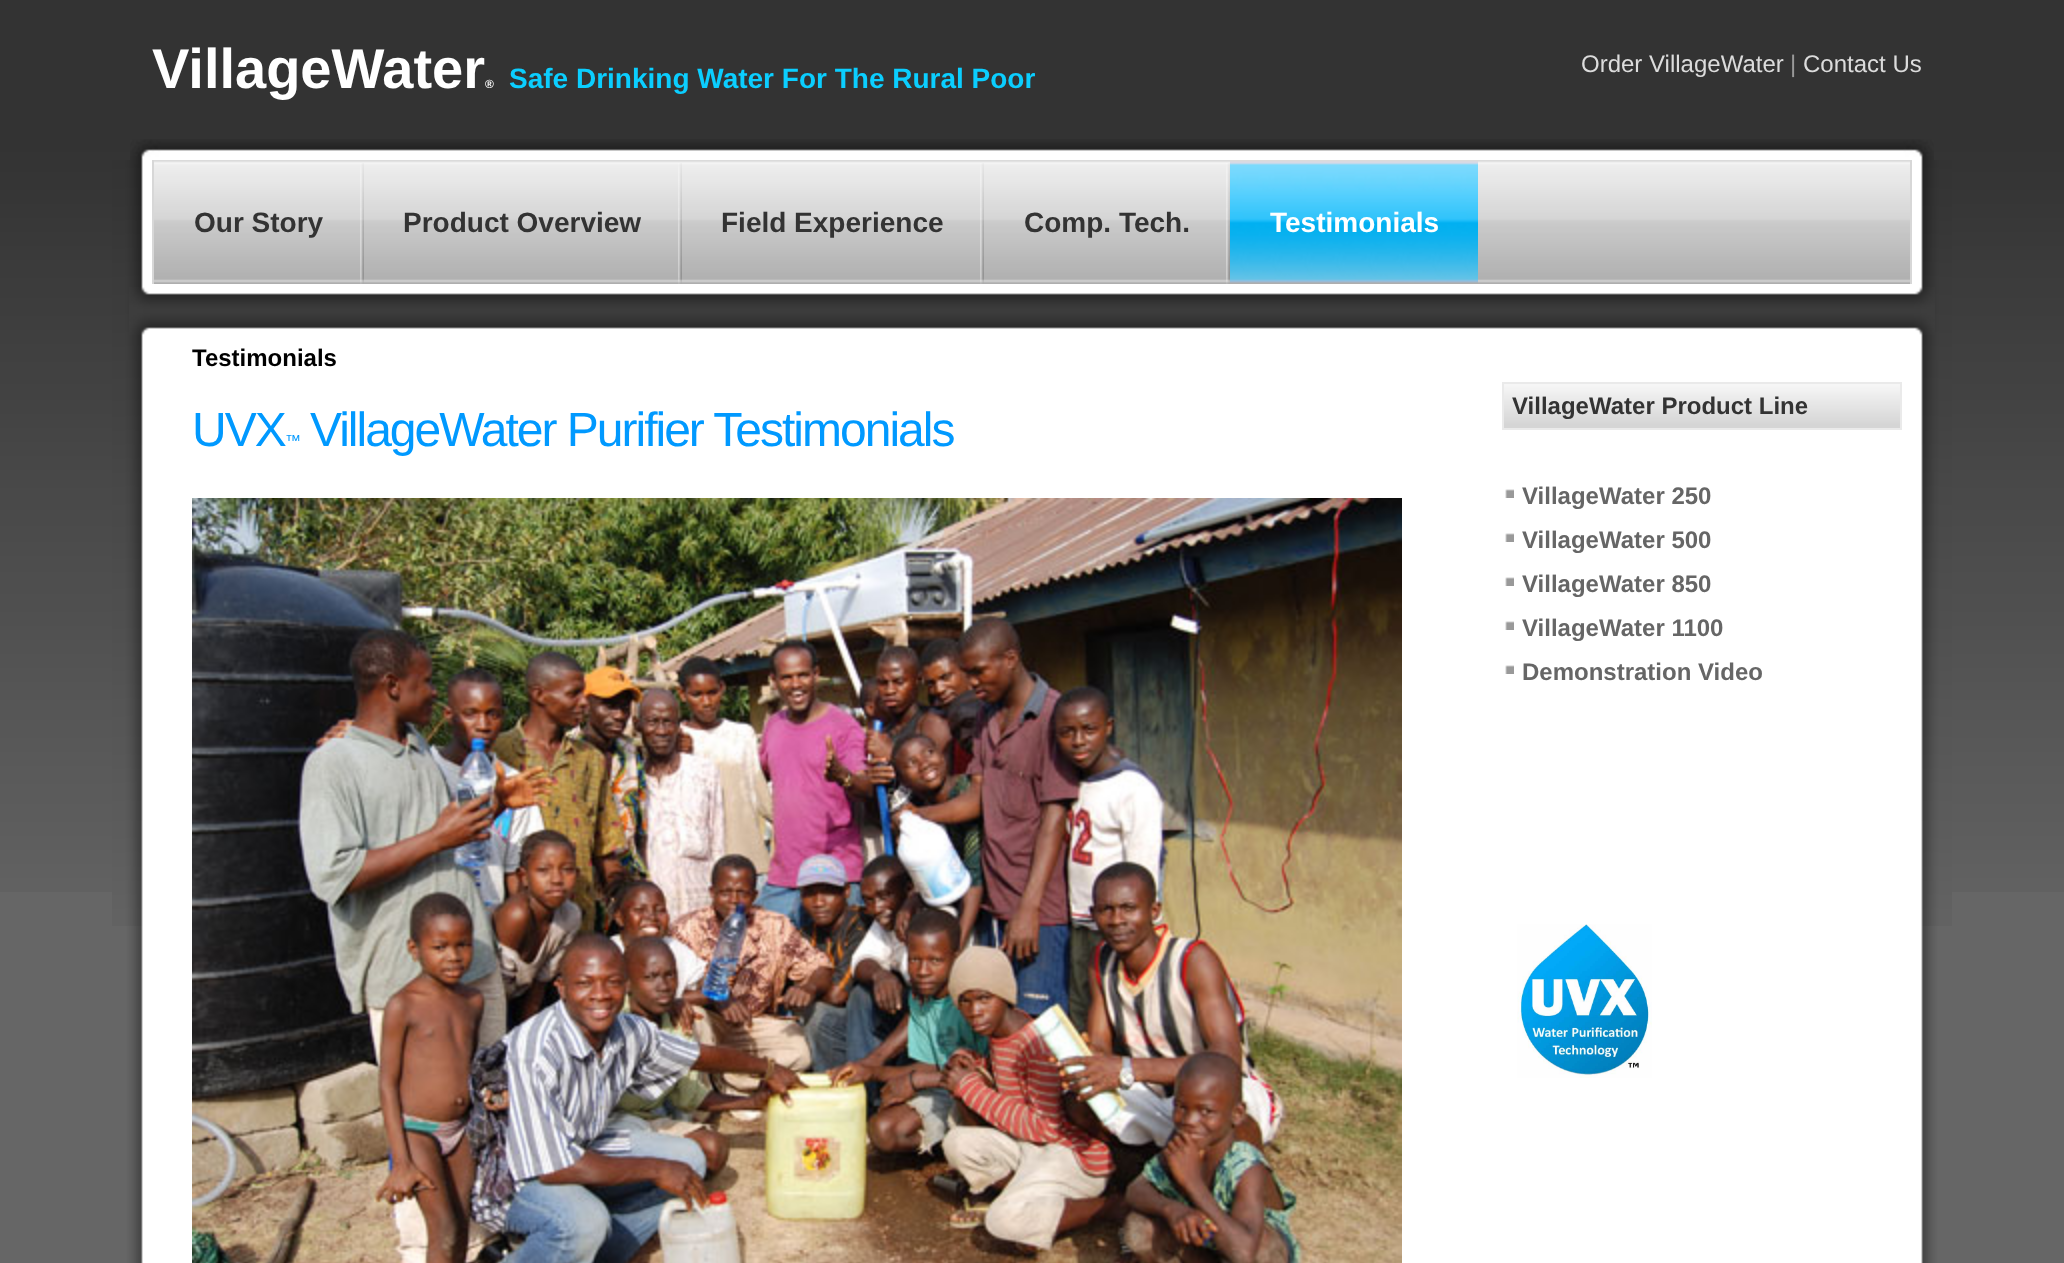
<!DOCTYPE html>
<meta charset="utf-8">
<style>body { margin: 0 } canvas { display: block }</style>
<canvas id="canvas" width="2064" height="1263"></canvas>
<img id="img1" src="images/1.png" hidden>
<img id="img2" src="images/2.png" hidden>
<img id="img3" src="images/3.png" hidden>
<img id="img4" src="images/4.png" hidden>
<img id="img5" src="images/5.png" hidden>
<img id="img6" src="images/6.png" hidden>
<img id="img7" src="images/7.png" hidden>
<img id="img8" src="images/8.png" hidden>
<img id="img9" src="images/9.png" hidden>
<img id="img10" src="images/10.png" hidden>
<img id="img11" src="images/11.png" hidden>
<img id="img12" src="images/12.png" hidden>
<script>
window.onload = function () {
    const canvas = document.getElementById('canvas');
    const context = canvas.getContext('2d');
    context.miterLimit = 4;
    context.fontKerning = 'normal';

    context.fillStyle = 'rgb(102, 102, 102)';
    context.fillRect(0, 0, 2064, 1263);
    context.drawImage(document.getElementById('img1'), 0, 0, 2064, 892);
    context.drawImage(document.getElementById('img2'), 130, 139, 1804, 21);
    context.drawImage(document.getElementById('img3'), 112, 926, 1840, 337);
    context.drawImage(document.getElementById('img4'), 112, 160, 1840, 766);
    context.drawImage(document.getElementById('img5'), 154, 160, 1756, 124);
    context.fillStyle = 'rgb(215, 215, 215)';
    context.fillRect(1910, 160, 2, 124);
    context.fillRect(152, 160, 2, 124);
    context.drawImage(document.getElementById('img6'), 360, 163, 4, 121);
    context.drawImage(document.getElementById('img6'), 678, 163, 4, 121);
    context.drawImage(document.getElementById('img6'), 980, 163, 4, 121);
    context.drawImage(document.getElementById('img6'), 1226, 163, 4, 121);
    context.drawImage(document.getElementById('img7'), 1230, 161, 248, 122);
    context.drawImage(document.getElementById('img8'), 129, 287, 1806, 48);
    context.drawImage(document.getElementById('img9'), 192, 498, 1210, 765);
    context.drawImage(document.getElementById('img10'), 1504, 384, 396, 44);
    context.strokeStyle = 'rgb(234, 234, 234)';
    context.lineWidth = 2;
    context.strokeRect(1503, 383, 398, 46);
    context.drawImage(document.getElementById('img11'), 1505, 489, 9, 9);
    context.drawImage(document.getElementById('img11'), 1505, 533, 9, 9);
    context.drawImage(document.getElementById('img11'), 1505, 577, 9, 9);
    context.drawImage(document.getElementById('img11'), 1505, 621, 9, 9);
    context.drawImage(document.getElementById('img11'), 1505, 665, 9, 9);
    context.drawImage(document.getElementById('img12'), 1517, 924, 135, 154);
    context.font = 'bold 56px Liberation Sans';
    context.fillStyle = 'rgb(255, 255, 255)';
    context.fillText('VillageWater', 152, 88);
    context.font = 'bold 12px Liberation Sans';
    context.fillText('®', 485, 88);
    context.font = 'bold 28px Liberation Sans';
    context.fillStyle = 'rgb(11, 206, 255)';
    context.fillText('Safe Drinking Water For The Rural Poor', 509, 88);
    context.font = '24px Liberation Sans';
    context.fillStyle = 'rgb(220, 220, 220)';
    context.fillText('Order VillageWater', 1581, 72);
    context.fillStyle = 'rgb(153, 153, 153)';
    context.fillText('|', 1790, 72);
    context.fillStyle = 'rgb(220, 220, 220)';
    context.fillText('Contact Us', 1803, 72);
    context.font = 'bold 28px Liberation Sans';
    context.fillStyle = 'rgb(51, 51, 51)';
    context.fillText('Our Story', 194, 232);
    context.fillText('Product Overview', 403, 232);
    context.fillText('Field Experience', 721, 232);
    context.fillText('Comp. Tech.', 1024, 232);
    context.fillStyle = 'rgb(255, 255, 255)';
    context.fillText('Testimonials', 1270, 232);
    context.font = 'bold 24px Liberation Sans';
    context.fillStyle = 'rgb(0, 0, 0)';
    context.fillText('Testimonials', 192, 366);
    context.letterSpacing = '-2px';
    context.font = '48px Liberation Sans';
    context.fillStyle = 'rgb(0, 153, 255)';
    context.fillText('UVX', 192, 446);
    context.font = '16px Liberation Sans';
    context.fillText('™', 285, 446);
    context.font = '48px Liberation Sans';
    context.fillText('VillageWater Purifier Testimonials', 310, 446);
    context.letterSpacing = '0px';
    context.font = 'bold 24px Liberation Sans';
    context.fillStyle = 'rgb(51, 51, 51)';
    context.fillText('VillageWater Product Line', 1512, 414);
    context.fillStyle = 'rgb(102, 102, 102)';
    context.fillText('VillageWater 250', 1522, 504);
    context.fillText('VillageWater 500', 1522, 548);
    context.fillText('VillageWater 850', 1522, 592);
    context.fillText('VillageWater 1100', 1522, 636);
    context.fillText('Demonstration Video', 1522, 680);
};
</script>
